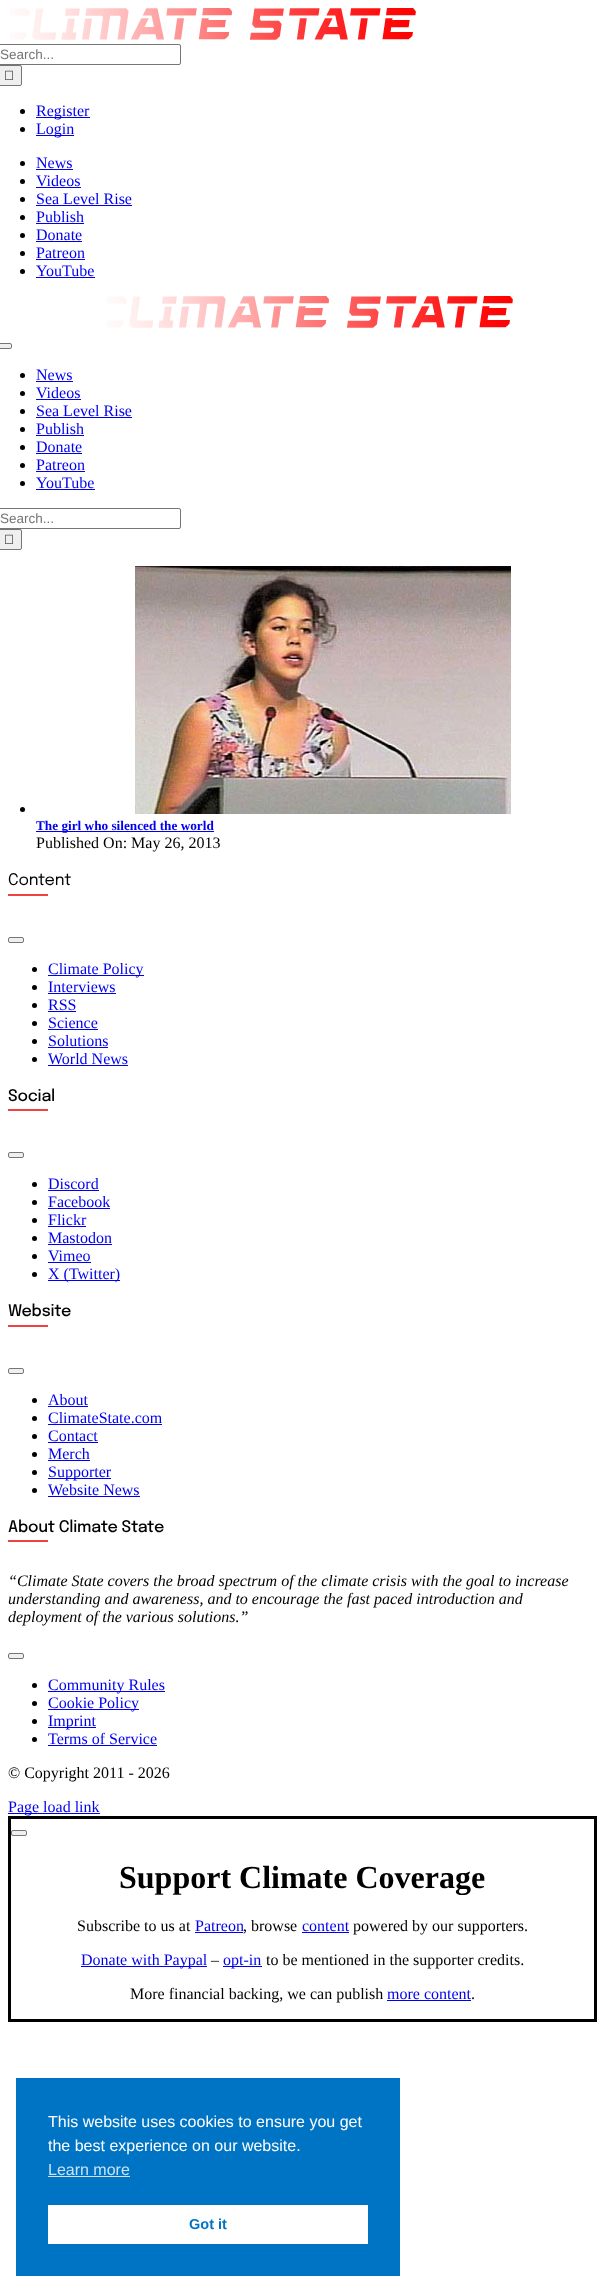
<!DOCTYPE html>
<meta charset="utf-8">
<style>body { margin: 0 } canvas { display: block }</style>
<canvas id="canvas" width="605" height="2292"></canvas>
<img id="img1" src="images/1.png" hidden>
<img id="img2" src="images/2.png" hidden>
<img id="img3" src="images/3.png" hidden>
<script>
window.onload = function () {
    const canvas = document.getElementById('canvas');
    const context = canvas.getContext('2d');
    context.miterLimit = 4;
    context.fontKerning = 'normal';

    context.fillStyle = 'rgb(255, 255, 255)';
    context.fillRect(0, 0, 605, 2292);
    context.drawImage(document.getElementById('img1'), 10, 8, 406, 32);
    context.beginPath();
    context.roundRect(-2.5, 44.5, 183, 20, 1.5);
    context.strokeStyle = 'rgb(118, 118, 118)';
    context.stroke();
    context.fillStyle = 'rgb(239, 239, 239)';
    context.beginPath();
    context.roundRect(-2.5, 65.5, 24, 20, 1.5);
    context.fill();
    context.stroke();
    context.drawImage(document.getElementById('img2'), 5, 70, 8, 10);
    context.fillStyle = 'rgb(0, 0, 0)';
    context.beginPath();
    context.arc(22.5, 111.5, 2.5, 0, 2 * Math.PI);
    context.fill();
    context.fillStyle = 'rgb(0, 0, 238)';
    context.fillRect(36, 117, 54, 1);
    context.fillStyle = 'rgb(0, 0, 0)';
    context.beginPath();
    context.arc(22.5, 129.5, 2.5, 0, 2 * Math.PI);
    context.fill();
    context.fillStyle = 'rgb(0, 0, 238)';
    context.fillRect(36, 135, 38, 1);
    context.fillStyle = 'rgb(0, 0, 0)';
    context.beginPath();
    context.arc(22.5, 163.5, 2.5, 0, 2 * Math.PI);
    context.fill();
    context.fillStyle = 'rgb(0, 0, 238)';
    context.fillRect(36, 169, 37, 1);
    context.fillStyle = 'rgb(0, 0, 0)';
    context.beginPath();
    context.arc(22.5, 181.5, 2.5, 0, 2 * Math.PI);
    context.fill();
    context.fillStyle = 'rgb(0, 0, 238)';
    context.fillRect(36, 187, 45, 1);
    context.fillStyle = 'rgb(0, 0, 0)';
    context.beginPath();
    context.arc(22.5, 199.5, 2.5, 0, 2 * Math.PI);
    context.fill();
    context.fillStyle = 'rgb(0, 0, 238)';
    context.fillRect(36, 205, 96, 1);
    context.fillStyle = 'rgb(0, 0, 0)';
    context.beginPath();
    context.arc(22.5, 217.5, 2.5, 0, 2 * Math.PI);
    context.fill();
    context.fillStyle = 'rgb(0, 0, 238)';
    context.fillRect(36, 223, 48, 1);
    context.fillStyle = 'rgb(0, 0, 0)';
    context.beginPath();
    context.arc(22.5, 235.5, 2.5, 0, 2 * Math.PI);
    context.fill();
    context.fillStyle = 'rgb(0, 0, 238)';
    context.fillRect(36, 241, 46, 1);
    context.fillStyle = 'rgb(0, 0, 0)';
    context.beginPath();
    context.arc(22.5, 253.5, 2.5, 0, 2 * Math.PI);
    context.fill();
    context.fillStyle = 'rgb(0, 0, 238)';
    context.fillRect(36, 259, 49, 1);
    context.fillStyle = 'rgb(0, 0, 0)';
    context.beginPath();
    context.arc(22.5, 271.5, 2.5, 0, 2 * Math.PI);
    context.fill();
    context.fillStyle = 'rgb(0, 0, 238)';
    context.fillRect(36, 277, 59, 1);
    context.drawImage(document.getElementById('img1'), 107, 296, 406, 32);
    context.fillStyle = 'rgb(239, 239, 239)';
    context.beginPath();
    context.roundRect(-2.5, 343.5, 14, 5, 1.5);
    context.fill();
    context.stroke();
    context.fillStyle = 'rgb(0, 0, 0)';
    context.beginPath();
    context.arc(22.5, 375.5, 2.5, 0, 2 * Math.PI);
    context.fill();
    context.fillStyle = 'rgb(0, 0, 238)';
    context.fillRect(36, 381, 37, 1);
    context.fillStyle = 'rgb(0, 0, 0)';
    context.beginPath();
    context.arc(22.5, 393.5, 2.5, 0, 2 * Math.PI);
    context.fill();
    context.fillStyle = 'rgb(0, 0, 238)';
    context.fillRect(36, 399, 45, 1);
    context.fillStyle = 'rgb(0, 0, 0)';
    context.beginPath();
    context.arc(22.5, 411.5, 2.5, 0, 2 * Math.PI);
    context.fill();
    context.fillStyle = 'rgb(0, 0, 238)';
    context.fillRect(36, 417, 96, 1);
    context.fillStyle = 'rgb(0, 0, 0)';
    context.beginPath();
    context.arc(22.5, 429.5, 2.5, 0, 2 * Math.PI);
    context.fill();
    context.fillStyle = 'rgb(0, 0, 238)';
    context.fillRect(36, 435, 48, 1);
    context.fillStyle = 'rgb(0, 0, 0)';
    context.beginPath();
    context.arc(22.5, 447.5, 2.5, 0, 2 * Math.PI);
    context.fill();
    context.fillStyle = 'rgb(0, 0, 238)';
    context.fillRect(36, 453, 46, 1);
    context.fillStyle = 'rgb(0, 0, 0)';
    context.beginPath();
    context.arc(22.5, 465.5, 2.5, 0, 2 * Math.PI);
    context.fill();
    context.fillStyle = 'rgb(0, 0, 238)';
    context.fillRect(36, 471, 49, 1);
    context.fillStyle = 'rgb(0, 0, 0)';
    context.beginPath();
    context.arc(22.5, 483.5, 2.5, 0, 2 * Math.PI);
    context.fill();
    context.fillStyle = 'rgb(0, 0, 238)';
    context.fillRect(36, 489, 59, 1);
    context.beginPath();
    context.roundRect(-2.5, 508.5, 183, 20, 1.5);
    context.stroke();
    context.fillStyle = 'rgb(239, 239, 239)';
    context.beginPath();
    context.roundRect(-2.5, 529.5, 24, 20, 1.5);
    context.fill();
    context.stroke();
    context.drawImage(document.getElementById('img2'), 5, 534, 8, 10);
    context.fillStyle = 'rgb(0, 0, 0)';
    context.beginPath();
    context.arc(22.5, 809.5, 2.5, 0, 2 * Math.PI);
    context.fill();
    context.drawImage(document.getElementById('img3'), 135, 566, 376, 248);
    context.fillStyle = 'rgb(0, 0, 238)';
    context.fillRect(36, 831, 178, 1);
    context.fillStyle = 'rgb(238, 67, 67)';
    context.fillRect(8, 894, 40, 2);
    context.fillStyle = 'rgb(239, 239, 239)';
    context.beginPath();
    context.roundRect(8.5, 937.5, 15, 5, 1.5);
    context.fill();
    context.stroke();
    context.fillStyle = 'rgb(0, 0, 0)';
    context.beginPath();
    context.arc(34.5, 969.5, 2.5, 0, 2 * Math.PI);
    context.fill();
    context.fillStyle = 'rgb(0, 0, 238)';
    context.fillRect(48, 975, 96, 1);
    context.fillStyle = 'rgb(0, 0, 0)';
    context.beginPath();
    context.arc(34.5, 987.5, 2.5, 0, 2 * Math.PI);
    context.fill();
    context.fillStyle = 'rgb(0, 0, 238)';
    context.fillRect(48, 993, 68, 1);
    context.fillStyle = 'rgb(0, 0, 0)';
    context.beginPath();
    context.arc(34.5, 1005.5, 2.5, 0, 2 * Math.PI);
    context.fill();
    context.fillStyle = 'rgb(0, 0, 238)';
    context.fillRect(48, 1011, 28, 1);
    context.fillStyle = 'rgb(0, 0, 0)';
    context.beginPath();
    context.arc(34.5, 1023.5, 2.5, 0, 2 * Math.PI);
    context.fill();
    context.fillStyle = 'rgb(0, 0, 238)';
    context.fillRect(48, 1029, 50, 1);
    context.fillStyle = 'rgb(0, 0, 0)';
    context.beginPath();
    context.arc(34.5, 1041.5, 2.5, 0, 2 * Math.PI);
    context.fill();
    context.fillStyle = 'rgb(0, 0, 238)';
    context.fillRect(48, 1047, 60, 1);
    context.fillStyle = 'rgb(0, 0, 0)';
    context.beginPath();
    context.arc(34.5, 1059.5, 2.5, 0, 2 * Math.PI);
    context.fill();
    context.fillStyle = 'rgb(0, 0, 238)';
    context.fillRect(48, 1065, 80, 1);
    context.fillStyle = 'rgb(238, 67, 67)';
    context.fillRect(8, 1109, 40, 2);
    context.fillStyle = 'rgb(239, 239, 239)';
    context.beginPath();
    context.roundRect(8.5, 1152.5, 15, 5, 1.5);
    context.fill();
    context.stroke();
    context.fillStyle = 'rgb(0, 0, 0)';
    context.beginPath();
    context.arc(34.5, 1184.5, 2.5, 0, 2 * Math.PI);
    context.fill();
    context.fillStyle = 'rgb(0, 0, 238)';
    context.fillRect(48, 1190, 51, 1);
    context.fillStyle = 'rgb(0, 0, 0)';
    context.beginPath();
    context.arc(34.5, 1202.5, 2.5, 0, 2 * Math.PI);
    context.fill();
    context.fillStyle = 'rgb(0, 0, 238)';
    context.fillRect(48, 1208, 62, 1);
    context.fillStyle = 'rgb(0, 0, 0)';
    context.beginPath();
    context.arc(34.5, 1220.5, 2.5, 0, 2 * Math.PI);
    context.fill();
    context.fillStyle = 'rgb(0, 0, 238)';
    context.fillRect(48, 1226, 38, 1);
    context.fillStyle = 'rgb(0, 0, 0)';
    context.beginPath();
    context.arc(34.5, 1238.5, 2.5, 0, 2 * Math.PI);
    context.fill();
    context.fillStyle = 'rgb(0, 0, 238)';
    context.fillRect(48, 1244, 64, 1);
    context.fillStyle = 'rgb(0, 0, 0)';
    context.beginPath();
    context.arc(34.5, 1256.5, 2.5, 0, 2 * Math.PI);
    context.fill();
    context.fillStyle = 'rgb(0, 0, 238)';
    context.fillRect(48, 1262, 43, 1);
    context.fillStyle = 'rgb(0, 0, 0)';
    context.beginPath();
    context.arc(34.5, 1274.5, 2.5, 0, 2 * Math.PI);
    context.fill();
    context.fillStyle = 'rgb(0, 0, 238)';
    context.fillRect(48, 1280, 72, 1);
    context.fillStyle = 'rgb(238, 67, 67)';
    context.fillRect(8, 1325, 40, 2);
    context.fillStyle = 'rgb(239, 239, 239)';
    context.beginPath();
    context.roundRect(8.5, 1368.5, 15, 5, 1.5);
    context.fill();
    context.stroke();
    context.fillStyle = 'rgb(0, 0, 0)';
    context.beginPath();
    context.arc(34.5, 1400.5, 2.5, 0, 2 * Math.PI);
    context.fill();
    context.fillStyle = 'rgb(0, 0, 238)';
    context.fillRect(48, 1406, 40, 1);
    context.fillStyle = 'rgb(0, 0, 0)';
    context.beginPath();
    context.arc(34.5, 1418.5, 2.5, 0, 2 * Math.PI);
    context.fill();
    context.fillStyle = 'rgb(0, 0, 238)';
    context.fillRect(48, 1424, 114, 1);
    context.fillStyle = 'rgb(0, 0, 0)';
    context.beginPath();
    context.arc(34.5, 1436.5, 2.5, 0, 2 * Math.PI);
    context.fill();
    context.fillStyle = 'rgb(0, 0, 238)';
    context.fillRect(48, 1442, 50, 1);
    context.fillStyle = 'rgb(0, 0, 0)';
    context.beginPath();
    context.arc(34.5, 1454.5, 2.5, 0, 2 * Math.PI);
    context.fill();
    context.fillStyle = 'rgb(0, 0, 238)';
    context.fillRect(48, 1460, 42, 1);
    context.fillStyle = 'rgb(0, 0, 0)';
    context.beginPath();
    context.arc(34.5, 1472.5, 2.5, 0, 2 * Math.PI);
    context.fill();
    context.fillStyle = 'rgb(0, 0, 238)';
    context.fillRect(48, 1478, 63, 1);
    context.fillStyle = 'rgb(0, 0, 0)';
    context.beginPath();
    context.arc(34.5, 1490.5, 2.5, 0, 2 * Math.PI);
    context.fill();
    context.fillStyle = 'rgb(0, 0, 238)';
    context.fillRect(48, 1496, 92, 1);
    context.fillStyle = 'rgb(238, 67, 67)';
    context.fillRect(8, 1540, 40, 2);
    context.fillStyle = 'rgb(239, 239, 239)';
    context.beginPath();
    context.roundRect(8.5, 1653.5, 15, 5, 1.5);
    context.fill();
    context.stroke();
    context.fillStyle = 'rgb(0, 0, 0)';
    context.beginPath();
    context.arc(34.5, 1685.5, 2.5, 0, 2 * Math.PI);
    context.fill();
    context.fillStyle = 'rgb(0, 0, 238)';
    context.fillRect(48, 1691, 117, 1);
    context.fillStyle = 'rgb(0, 0, 0)';
    context.beginPath();
    context.arc(34.5, 1703.5, 2.5, 0, 2 * Math.PI);
    context.fill();
    context.fillStyle = 'rgb(0, 0, 238)';
    context.fillRect(48, 1709, 91, 1);
    context.fillStyle = 'rgb(0, 0, 0)';
    context.beginPath();
    context.arc(34.5, 1721.5, 2.5, 0, 2 * Math.PI);
    context.fill();
    context.fillStyle = 'rgb(0, 0, 238)';
    context.fillRect(48, 1727, 48, 1);
    context.fillStyle = 'rgb(0, 0, 0)';
    context.beginPath();
    context.arc(34.5, 1739.5, 2.5, 0, 2 * Math.PI);
    context.fill();
    context.fillStyle = 'rgb(0, 0, 238)';
    context.fillRect(48, 1745, 109, 1);
    context.fillRect(8, 1813, 92, 1);
    context.strokeStyle = 'rgb(0, 0, 0)';
    context.lineWidth = 3;
    context.strokeRect(9.5, 1817.5, 586, 203);
    context.fillStyle = 'rgb(239, 239, 239)';
    context.beginPath();
    context.roundRect(11.5, 1830.5, 15, 5, 1.5);
    context.fill();
    context.strokeStyle = 'rgb(118, 118, 118)';
    context.lineWidth = 1;
    context.stroke();
    context.fillStyle = 'rgb(0, 0, 238)';
    context.fillRect(195, 1932, 48, 1);
    context.fillRect(302, 1932, 47, 1);
    context.fillRect(81, 1966, 126, 1);
    context.fillRect(223, 1966, 39, 1);
    context.fillRect(387, 2000, 84, 1);
    context.fillStyle = 'rgb(0, 116, 196)';
    context.fillRect(16, 2078, 384, 198);
    context.fillStyle = 'rgb(204, 227, 243)';
    context.fillRect(48, 2176, 82, 1);
    context.fillStyle = 'rgb(255, 255, 255)';
    context.fillRect(48, 2205, 320, 39);
    context.font = '13.5px Liberation Sans';
    context.fillStyle = 'rgb(117, 117, 117)';
    context.fillText('Search...', 0, 59);
    context.font = '16px Liberation Serif';
    context.fillStyle = 'rgb(0, 0, 238)';
    context.fillText('Register', 36, 116);
    context.fillText('Login', 36, 134);
    context.fillText('News', 36, 168);
    context.fillText('Videos', 36, 186);
    context.fillText('Sea Level Rise', 36, 204);
    context.fillText('Publish', 36, 222);
    context.fillText('Donate', 36, 240);
    context.fillText('Patreon', 36, 258);
    context.fillText('YouTube', 36, 276);
    context.fillText('News', 36, 380);
    context.fillText('Videos', 36, 398);
    context.fillText('Sea Level Rise', 36, 416);
    context.fillText('Publish', 36, 434);
    context.fillText('Donate', 36, 452);
    context.fillText('Patreon', 36, 470);
    context.fillText('YouTube', 36, 488);
    context.font = '13.5px Liberation Sans';
    context.fillStyle = 'rgb(117, 117, 117)';
    context.fillText('Search...', 0, 523);
    context.font = 'bold 13.25px Liberation Serif';
    context.fillStyle = 'rgb(0, 0, 238)';
    context.fillText('The girl who silenced the world', 36, 830);
    context.font = '16px Liberation Serif';
    context.fillStyle = 'rgb(0, 0, 0)';
    context.fillText('Published On: May 26, 2013', 36, 848);
    context.letterSpacing = '-0.2px';
    context.font = '16px Epilogue';
    context.fillText('Content', 8, 885);
    context.letterSpacing = '0px';
    context.font = '16px Liberation Serif';
    context.fillStyle = 'rgb(0, 0, 238)';
    context.fillText('Climate Policy', 48, 974);
    context.fillText('Interviews', 48, 992);
    context.fillText('RSS', 48, 1010);
    context.fillText('Science', 48, 1028);
    context.fillText('Solutions', 48, 1046);
    context.fillText('World News', 48, 1064);
    context.letterSpacing = '-0.2px';
    context.font = '500 16px Epilogue';
    context.fillStyle = 'rgb(0, 0, 0)';
    context.fillText('Social', 8, 1101);
    context.letterSpacing = '0px';
    context.font = '16px Liberation Serif';
    context.fillStyle = 'rgb(0, 0, 238)';
    context.fillText('Discord', 48, 1189);
    context.fillText('Facebook', 48, 1207);
    context.fillText('Flickr', 48, 1225);
    context.fillText('Mastodon', 48, 1243);
    context.fillText('Vimeo', 48, 1261);
    context.fillText('X (Twitter)', 48, 1279);
    context.letterSpacing = '-0.2px';
    context.font = '500 16px Epilogue';
    context.fillStyle = 'rgb(0, 0, 0)';
    context.fillText('Website', 8, 1316);
    context.letterSpacing = '0px';
    context.font = '16px Liberation Serif';
    context.fillStyle = 'rgb(0, 0, 238)';
    context.fillText('About', 48, 1405);
    context.fillText('ClimateState.com', 48, 1423);
    context.fillText('Contact', 48, 1441);
    context.fillText('Merch', 48, 1459);
    context.fillText('Supporter', 48, 1477);
    context.fillText('Website News', 48, 1495);
    context.letterSpacing = '-0.2px';
    context.font = '500 16px Epilogue';
    context.fillStyle = 'rgb(0, 0, 0)';
    context.fillText('About Climate State', 8, 1532);
    context.letterSpacing = '0px';
    context.font = 'italic 16px Liberation Serif';
    context.fillText('“Climate State covers the broad spectrum of the climate crisis with the goal to increase', 8, 1586);
    context.fillText('understanding and awareness, and to encourage the fast paced introduction and', 8, 1604);
    context.fillText('deployment of the various solutions.”', 8, 1622);
    context.font = '16px Liberation Serif';
    context.fillStyle = 'rgb(0, 0, 238)';
    context.fillText('Community Rules', 48, 1690);
    context.fillText('Cookie Policy', 48, 1708);
    context.fillText('Imprint', 48, 1726);
    context.fillText('Terms of Service', 48, 1744);
    context.fillStyle = 'rgb(0, 0, 0)';
    context.fillText('© Copyright 2011 - 2026', 8, 1778);
    context.fillStyle = 'rgb(0, 0, 238)';
    context.fillText('Page load link', 8, 1812);
    context.font = 'bold 32px Liberation Serif';
    context.fillStyle = 'rgb(0, 0, 0)';
    context.fillText('Support Climate Coverage', 119, 1888);
    context.font = '16px Liberation Serif';
    context.fillText('Subscribe to us at', 77, 1931);
    context.fillStyle = 'rgb(0, 0, 238)';
    context.fillText('Patreon', 195, 1931);
    context.fillStyle = 'rgb(0, 0, 0)';
    context.fillText(', browse', 243, 1931);
    context.fillStyle = 'rgb(0, 0, 238)';
    context.fillText('content', 302, 1931);
    context.fillStyle = 'rgb(0, 0, 0)';
    context.fillText('powered by our supporters.', 353, 1931);
    context.fillStyle = 'rgb(0, 0, 238)';
    context.fillText('Donate with Paypal', 81, 1965);
    context.fillStyle = 'rgb(0, 0, 0)';
    context.fillText('–', 211, 1965);
    context.fillStyle = 'rgb(0, 0, 238)';
    context.fillText('opt-in', 223, 1965);
    context.fillStyle = 'rgb(0, 0, 0)';
    context.fillText('to be mentioned in the supporter credits.', 266, 1965);
    context.fillText('More financial backing, we can publish', 130, 1999);
    context.fillStyle = 'rgb(0, 0, 238)';
    context.fillText('more content', 387, 1999);
    context.fillStyle = 'rgb(0, 0, 0)';
    context.fillText('.', 471, 1999);
    context.font = '16px Liberation Sans';
    context.fillStyle = 'rgb(255, 255, 255)';
    context.fillText('This website uses cookies to ensure you get', 48, 2127);
    context.fillText('the best experience on our website.', 48, 2151);
    context.fillStyle = 'rgb(204, 227, 243)';
    context.fillText('Learn more', 48, 2175);
    context.font = 'bold 14.5px Liberation Sans';
    context.fillStyle = 'rgb(0, 116, 196)';
    context.fillText('Got it', 189, 2229);
};
</script>
